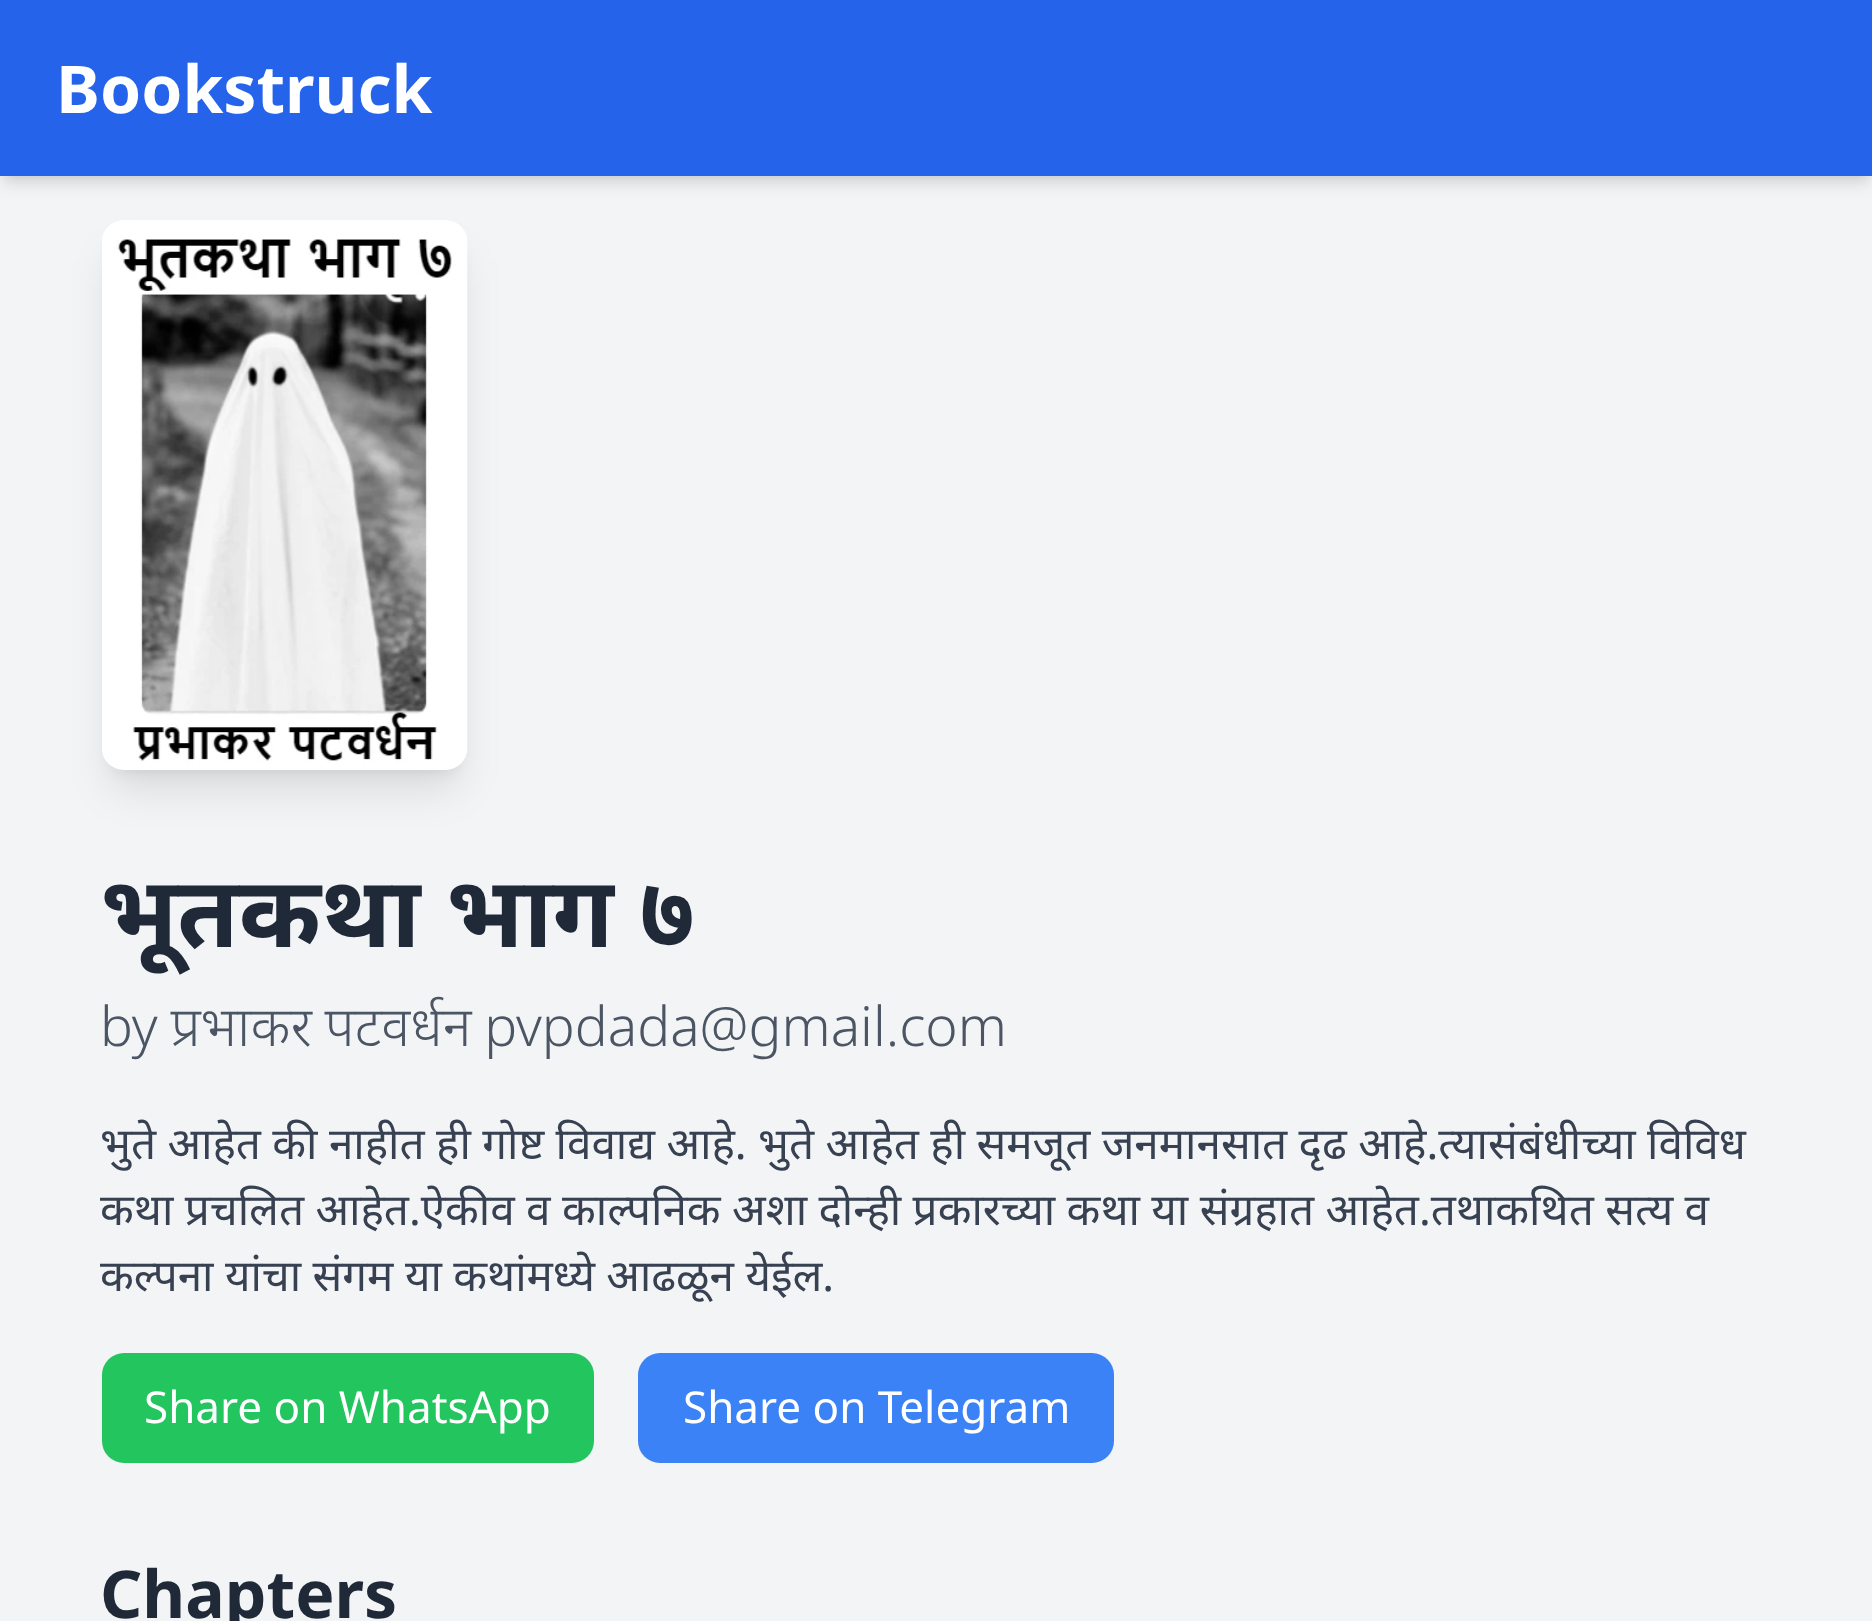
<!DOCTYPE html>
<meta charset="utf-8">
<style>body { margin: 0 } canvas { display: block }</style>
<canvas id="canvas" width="1872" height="1621"></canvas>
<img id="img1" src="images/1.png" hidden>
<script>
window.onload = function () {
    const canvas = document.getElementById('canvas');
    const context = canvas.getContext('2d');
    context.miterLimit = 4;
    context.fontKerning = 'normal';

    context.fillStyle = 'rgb(243, 244, 246)';
    context.fillRect(0, 0, 1872, 1621);
    context.fillStyle = 'rgba(0, 0, 0, 0.1)';
    context.filter = 'blur(5.5px)';
    context.beginPath();
    context.rect(6, 11, 1861, 165);
    context.fill();
    context.filter = 'none';
    context.filter = 'blur(8px)';
    context.beginPath();
    context.rect(3, 14, 1867, 170);
    context.fill();
    context.filter = 'none';
    context.fillStyle = 'rgb(37, 99, 235)';
    context.fillRect(0, 0, 1872, 176);
    context.fillStyle = 'rgba(0, 0, 0, 0.1)';
    context.filter = 'blur(8px)';
    context.beginPath();
    context.roundRect(113, 242, 344, 528, 11);
    context.fill();
    context.filter = 'none';
    context.filter = 'blur(20.5px)';
    context.beginPath();
    context.roundRect(110, 256, 349, 533, 14);
    context.fill();
    context.filter = 'none';
    context.drawImage(document.getElementById('img1'), 102, 220, 366, 550);
    context.fillStyle = 'rgb(34, 197, 94)';
    context.beginPath();
    context.roundRect(102, 1353, 492, 110, 22);
    context.fill();
    context.fillStyle = 'rgb(59, 130, 246)';
    context.beginPath();
    context.roundRect(638, 1353, 476, 110, 22);
    context.fill();
    context.font = 'bold 66px Noto Sans';
    context.fillStyle = 'rgb(255, 255, 255)';
    context.fillText('Bookstruck', 56, 113);
    context.font = 'bold 99px Noto Sans';
    context.fillStyle = 'rgb(31, 41, 55)';
    context.fillText('भूतकथा भाग ७', 100, 947);
    context.wordSpacing = '-1.5px';
    context.font = '300 55px Noto Sans';
    context.fillStyle = 'rgb(75, 85, 99)';
    context.fillText('by प्रभाकर पटवर्धन pvpdada@gmail.com', 100, 1046);
    context.wordSpacing = '0px';
    context.font = '44px Noto Sans';
    context.fillStyle = 'rgb(55, 65, 81)';
    context.fillText('भुते आहेत की नाहीत ही गोष्ट विवाद्य आहे. भुते आहेत ही समजूत जनमानसात दृढ आहे.त्यासंबंधीच्या विविध', 100, 1159);
    context.fillText('कथा प्रचलित आहेत.ऐकीव व काल्पनिक अशा दोन्ही प्रकारच्या कथा या संग्रहात आहेत.तथाकथित सत्य व', 100, 1225);
    context.fillText('कल्पना यांचा संगम या कथांमध्ये आढळून येईल.', 100, 1291);
    context.fillStyle = 'rgb(255, 255, 255)';
    context.fillText('Share on WhatsApp', 144, 1423);
    context.fillText('Share on Telegram', 683, 1423);
    context.font = 'bold 66px Noto Sans';
    context.fillStyle = 'rgb(31, 41, 55)';
    context.fillText('Chapters', 100, 1618);
};
</script>
